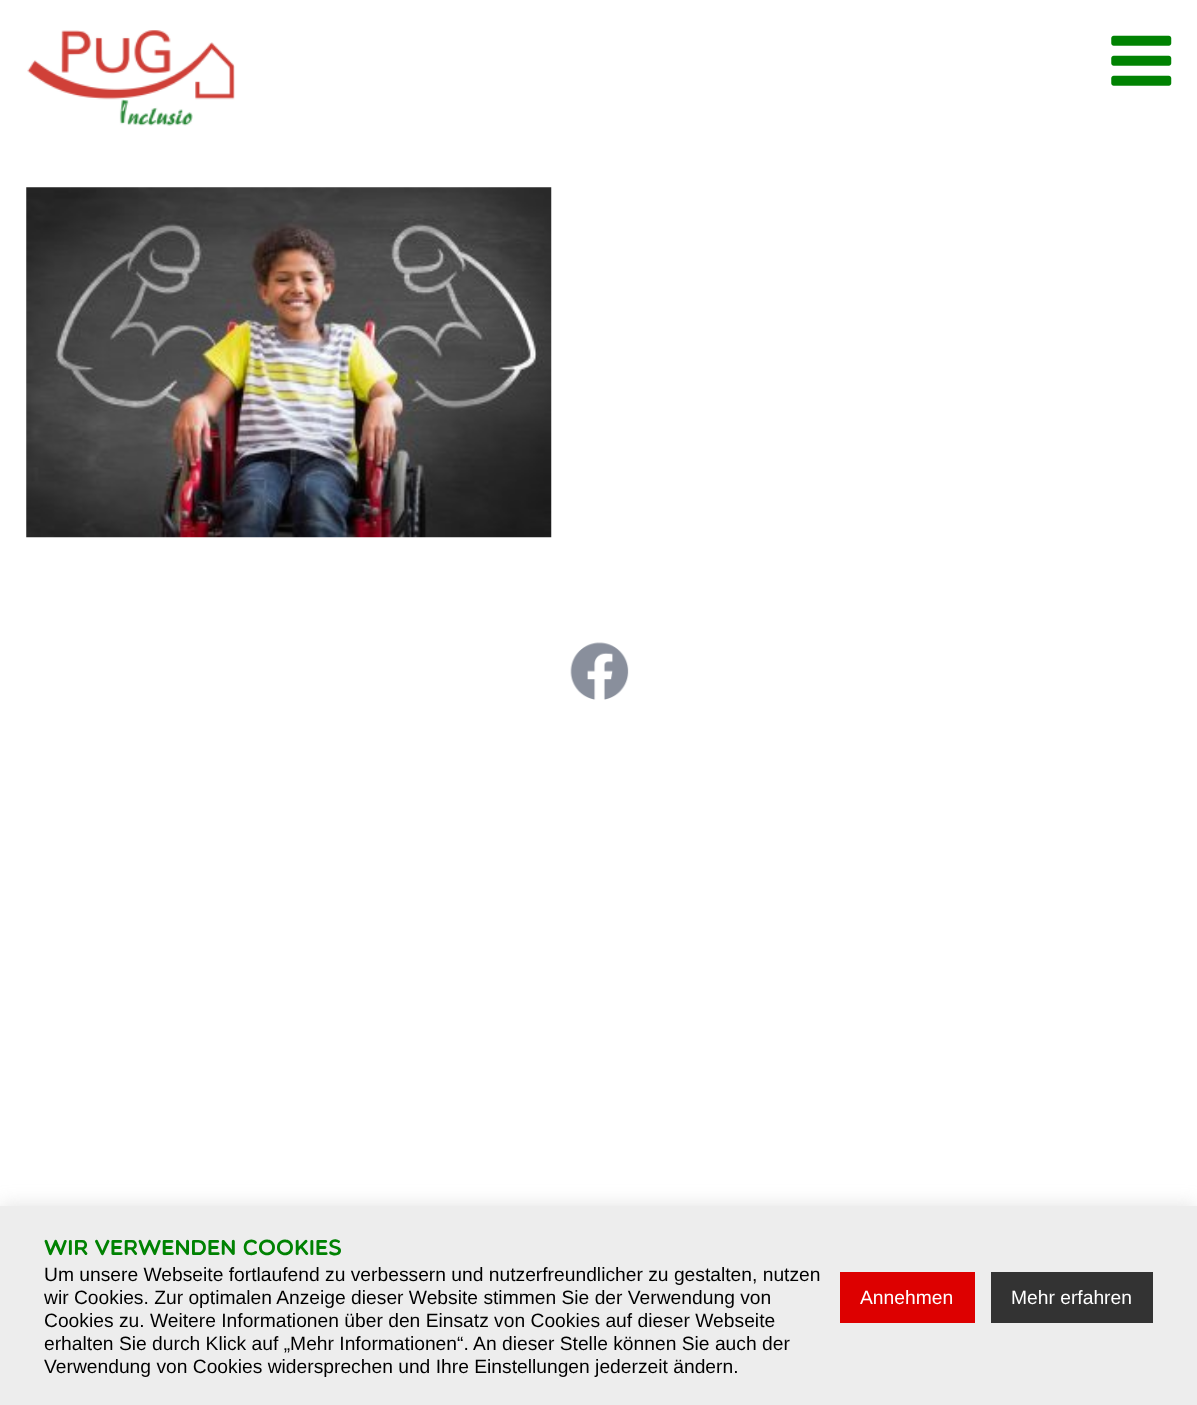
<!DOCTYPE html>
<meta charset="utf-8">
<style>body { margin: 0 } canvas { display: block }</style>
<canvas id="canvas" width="1197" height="1405"></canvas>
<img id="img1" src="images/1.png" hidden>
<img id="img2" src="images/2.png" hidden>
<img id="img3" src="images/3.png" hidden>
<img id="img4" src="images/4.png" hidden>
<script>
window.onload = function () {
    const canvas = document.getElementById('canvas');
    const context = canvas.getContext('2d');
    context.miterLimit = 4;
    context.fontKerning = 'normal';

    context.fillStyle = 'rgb(255, 255, 255)';
    context.fillRect(0, 0, 1197, 1405);
    context.drawImage(document.getElementById('img1'), 27, 30, 208, 96);
    context.drawImage(document.getElementById('img2'), 1111, 35, 61, 51);
    context.drawImage(document.getElementById('img3'), 26, 187, 526, 351);
    context.drawImage(document.getElementById('img4'), 570, 642, 59, 58);
    context.fillStyle = 'rgba(172, 171, 171, 0.3)';
    context.filter = 'blur(9px)';
    context.beginPath();
    context.rect(0, 1204, 1197, 200);
    context.fill();
    context.filter = 'none';
    context.fillStyle = 'rgb(237, 237, 237)';
    context.fillRect(0, 1206, 1197, 199);
    context.fillStyle = 'rgb(221, 0, 0)';
    context.fillRect(840, 1272, 135, 51);
    context.fillStyle = 'rgb(51, 51, 51)';
    context.fillRect(991, 1272, 162, 51);
    context.font = 'bold 21.75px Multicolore';
    context.fillStyle = 'rgb(0, 130, 2)';
    context.fillText('Wir verwenden Cookies', 44, 1255);
    context.font = '19.25px Liberation Sans';
    context.fillStyle = 'rgb(0, 0, 0)';
    context.fillText('Um unsere Webseite fortlaufend zu verbessern und nutzerfreundlicher zu gestalten, nutzen', 44, 1281);
    context.fillText('wir Cookies. Zur optimalen Anzeige dieser Website stimmen Sie der Verwendung von', 44, 1304);
    context.fillText('Cookies zu. Weitere Informationen über den Einsatz von Cookies auf dieser Webseite', 44, 1327);
    context.fillText('erhalten Sie durch Klick auf „Mehr Informationen“. An dieser Stelle können Sie auch der', 44, 1350);
    context.fillText('Verwendung von Cookies widersprechen und Ihre Einstellungen jederzeit ändern.', 44, 1373);
    context.fillStyle = 'rgb(255, 255, 255)';
    context.fillText('Annehmen', 860, 1304);
    context.fillText('Mehr erfahren', 1011, 1304);
};
</script>
